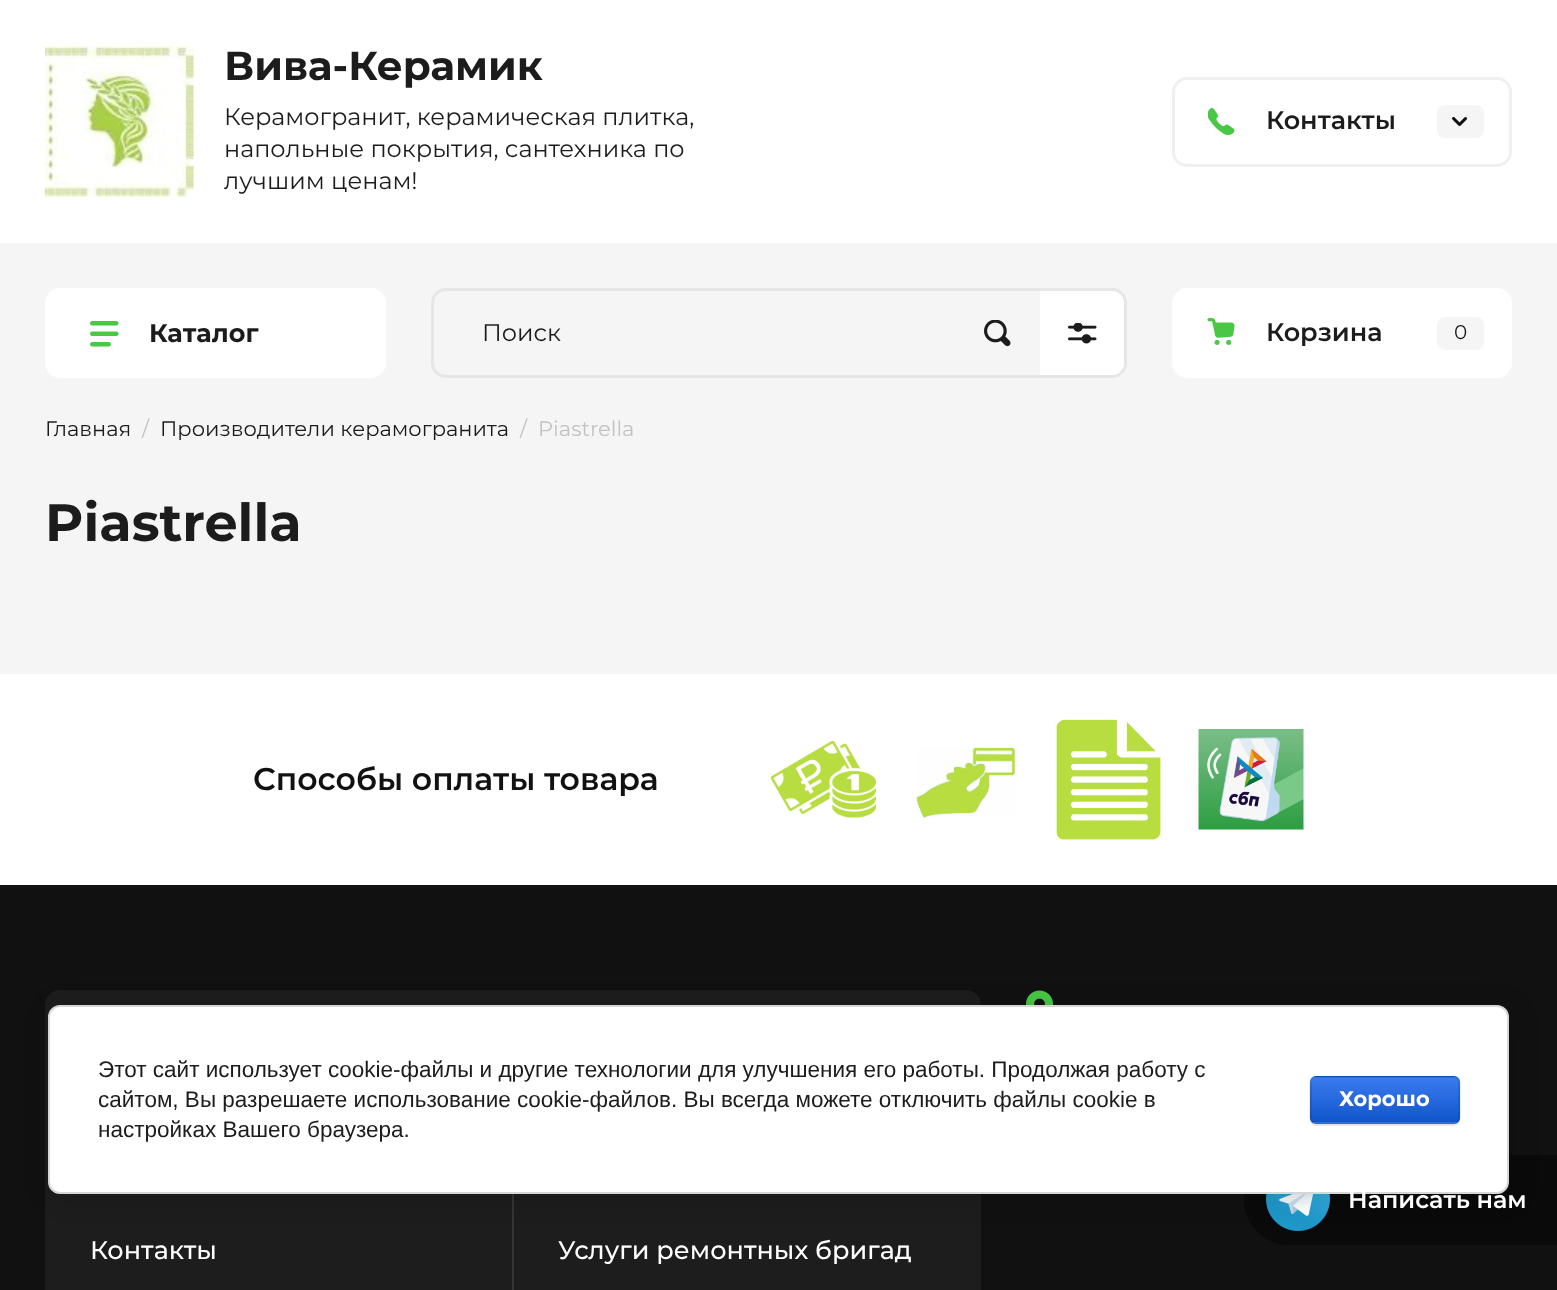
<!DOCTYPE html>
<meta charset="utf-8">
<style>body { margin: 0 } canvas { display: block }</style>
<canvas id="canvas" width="1557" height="1290"></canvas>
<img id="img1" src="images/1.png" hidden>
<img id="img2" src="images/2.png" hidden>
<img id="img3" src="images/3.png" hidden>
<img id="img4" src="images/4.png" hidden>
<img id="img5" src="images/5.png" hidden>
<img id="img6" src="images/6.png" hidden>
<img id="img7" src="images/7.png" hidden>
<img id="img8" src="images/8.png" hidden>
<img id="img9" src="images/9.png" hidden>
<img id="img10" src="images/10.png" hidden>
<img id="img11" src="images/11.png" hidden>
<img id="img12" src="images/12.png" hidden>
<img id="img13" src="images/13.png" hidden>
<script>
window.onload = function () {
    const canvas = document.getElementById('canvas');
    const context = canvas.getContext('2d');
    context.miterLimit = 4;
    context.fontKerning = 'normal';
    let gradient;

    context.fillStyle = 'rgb(245, 245, 245)';
    context.fillRect(0, 0, 1557, 1290);
    context.fillStyle = 'rgb(255, 255, 255)';
    context.fillRect(0, 0, 1557, 243);
    context.drawImage(document.getElementById('img1'), 45, 46, 149, 151);
    context.beginPath();
    context.roundRect(1173.5, 78.5, 337, 87, 13.5);
    context.strokeStyle = 'rgb(240, 240, 240)';
    context.lineWidth = 3;
    context.stroke();
    context.drawImage(document.getElementById('img2'), 1208, 108, 27, 27);
    context.fillStyle = 'rgb(245, 245, 245)';
    context.beginPath();
    context.roundRect(1437, 105, 47, 33, 8);
    context.fill();
    context.drawImage(document.getElementById('img3'), 1452, 117, 15, 9);
    context.fillStyle = 'rgb(255, 255, 255)';
    context.beginPath();
    context.roundRect(45, 288, 341, 90, 15);
    context.fill();
    context.drawImage(document.getElementById('img4'), 90, 321, 29, 26);
    context.beginPath();
    context.roundRect(432.5, 289.5, 693, 87, 13.5);
    context.strokeStyle = 'rgb(230, 230, 230)';
    context.stroke();
    context.drawImage(document.getElementById('img5'), 984, 320, 27, 27);
    context.beginPath();
    context.roundRect(1040, 291, 84, 84, [0, 12, 12, 0]);
    context.fill();
    context.drawImage(document.getElementById('img6'), 1068, 323, 29, 21);
    context.beginPath();
    context.roundRect(1172, 288, 340, 90, 15);
    context.fill();
    context.drawImage(document.getElementById('img7'), 1207, 318, 28, 27);
    context.fillStyle = 'rgb(245, 245, 245)';
    context.beginPath();
    context.roundRect(1437, 317, 47, 33, 8);
    context.fill();
    context.fillStyle = 'rgb(255, 255, 255)';
    context.fillRect(0, 674, 1557, 211);
    context.drawImage(document.getElementById('img8'), 771, 741, 105, 77);
    context.drawImage(document.getElementById('img9'), 916, 747, 100, 71);
    context.drawImage(document.getElementById('img10'), 1056, 719, 105, 121);
    context.drawImage(document.getElementById('img11'), 1198, 729, 106, 101);
    context.fillStyle = 'rgb(17, 17, 17)';
    context.fillRect(0, 885, 1557, 405);
    context.drawImage(document.getElementById('img12'), 1026, 990, 27, 15);
    context.fillStyle = 'rgb(29, 29, 29)';
    context.beginPath();
    context.roundRect(45, 990, 936, 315, 15);
    context.fill();
    context.fillStyle = 'rgb(52, 52, 52)';
    context.fillRect(512, 1194, 2, 96);
    context.fillStyle = 'rgba(0, 0, 0, 0.4)';
    context.beginPath();
    context.roundRect(1244, 1155, 313, 90, [45, 0, 0, 45]);
    context.fill();
    context.drawImage(document.getElementById('img13'), 1266, 1194, 64, 37);
    context.fillStyle = 'rgba(0, 0, 0, 0.14)';
    context.filter = 'blur(13.5px)';
    context.beginPath();
    context.roundRect(51, 1008, 1461, 189, 12);
    context.fill();
    context.filter = 'none';
    context.fillStyle = 'rgb(255, 255, 255)';
    context.beginPath();
    context.roundRect(49, 1006, 1459, 187, 11);
    context.fill();
    context.strokeStyle = 'rgb(214, 214, 214)';
    context.lineWidth = 2;
    context.stroke();
    context.fillStyle = 'rgba(0, 0, 0, 0.2)';
    context.filter = 'blur(1px)';
    context.beginPath();
    context.roundRect(1310, 1077, 150, 48, 6);
    context.fill();
    context.filter = 'none';
    context.save();
    context.beginPath();
    context.roundRect(1310, 1076, 150, 48, 6);
    context.clip();
    gradient = context.createLinearGradient(1385, 1032, 1385, 1077);
    gradient.addColorStop(0, 'rgb(59, 124, 239)');
    gradient.addColorStop(1, 'rgb(17, 85, 204)');
    context.fillStyle = gradient;
    context.fillRect(1310, 1076, 150, 1);
    gradient = context.createLinearGradient(1385, 1077, 1385, 1122);
    gradient.addColorStop(0, 'rgb(59, 124, 239)');
    gradient.addColorStop(1, 'rgb(17, 85, 204)');
    context.fillStyle = gradient;
    context.fillRect(1310, 1077, 150, 45);
    gradient = context.createLinearGradient(1385, 1122, 1385, 1167);
    gradient.addColorStop(0, 'rgb(59, 124, 239)');
    gradient.addColorStop(1, 'rgb(17, 85, 204)');
    context.fillStyle = gradient;
    context.fillRect(1310, 1122, 150, 2);
    context.restore();
    context.beginPath();
    context.roundRect(1311, 1077, 148, 46, 5);
    context.strokeStyle = 'rgba(0, 0, 0, 0.1)';
    context.stroke();
    context.font = 'bold 40.5px Montserrat';
    context.fillStyle = 'rgb(28, 28, 28)';
    context.fillText('Вива-Керамик', 224, 80);
    context.font = '24px Montserrat';
    context.fillText('Керамогранит, керамическая плитка,', 224, 125);
    context.fillText('напольные покрытия, сантехника по', 224, 157);
    context.fillText('лучшим ценам!', 224, 189);
    context.font = '600 25.5px Montserrat';
    context.fillText('Контакты', 1266, 129);
    context.font = 'bold 25.5px Montserrat';
    context.fillText('Каталог', 149, 342);
    context.font = '24px Montserrat';
    context.fillText('Поиск', 482, 341);
    context.font = '600 25.5px Montserrat';
    context.fillText('Корзина', 1266, 341);
    context.font = '20px Montserrat';
    context.fillText('0', 1454, 339);
    context.font = '21px Montserrat';
    context.fillText('Главная', 45, 436);
    context.fillStyle = 'rgb(195, 195, 195)';
    context.fillText('/', 142, 436);
    context.fillStyle = 'rgb(28, 28, 28)';
    context.fillText('Производители керамогранита', 160, 436);
    context.fillStyle = 'rgb(195, 195, 195)';
    context.fillText('/  Piastrella', 520, 436);
    context.font = 'bold 52.5px Montserrat';
    context.fillStyle = 'rgb(28, 28, 28)';
    context.fillText('Piastrella', 45, 541);
    context.font = '600 31.5px Montserrat';
    context.fillStyle = 'rgb(17, 17, 17)';
    context.fillText('Способы оплаты товара', 253, 790);
    context.font = '500 25.5px Montserrat';
    context.fillStyle = 'rgb(255, 255, 255)';
    context.fillText('Контакты', 90, 1259);
    context.fillText('Услуги ремонтных бригад', 558, 1259);
    context.font = '22.5px Liberation Sans';
    context.fillStyle = 'rgb(28, 28, 28)';
    context.fillText('Этот сайт использует cookie-файлы и другие технологии для улучшения его работы. Продолжая работу с', 98, 1077);
    context.fillText('сайтом, Вы разрешаете использование cookie-файлов. Вы всегда можете отключить файлы cookie в', 98, 1107);
    context.fillText('настройках Вашего браузера.', 98, 1137);
    context.font = 'bold 21px Montserrat';
    context.fillStyle = 'rgb(255, 255, 255)';
    context.fillText('Хорошо', 1339, 1106);
    context.font = '600 24px Montserrat';
    context.fillText('Написать нам', 1348, 1208);
};
</script>
